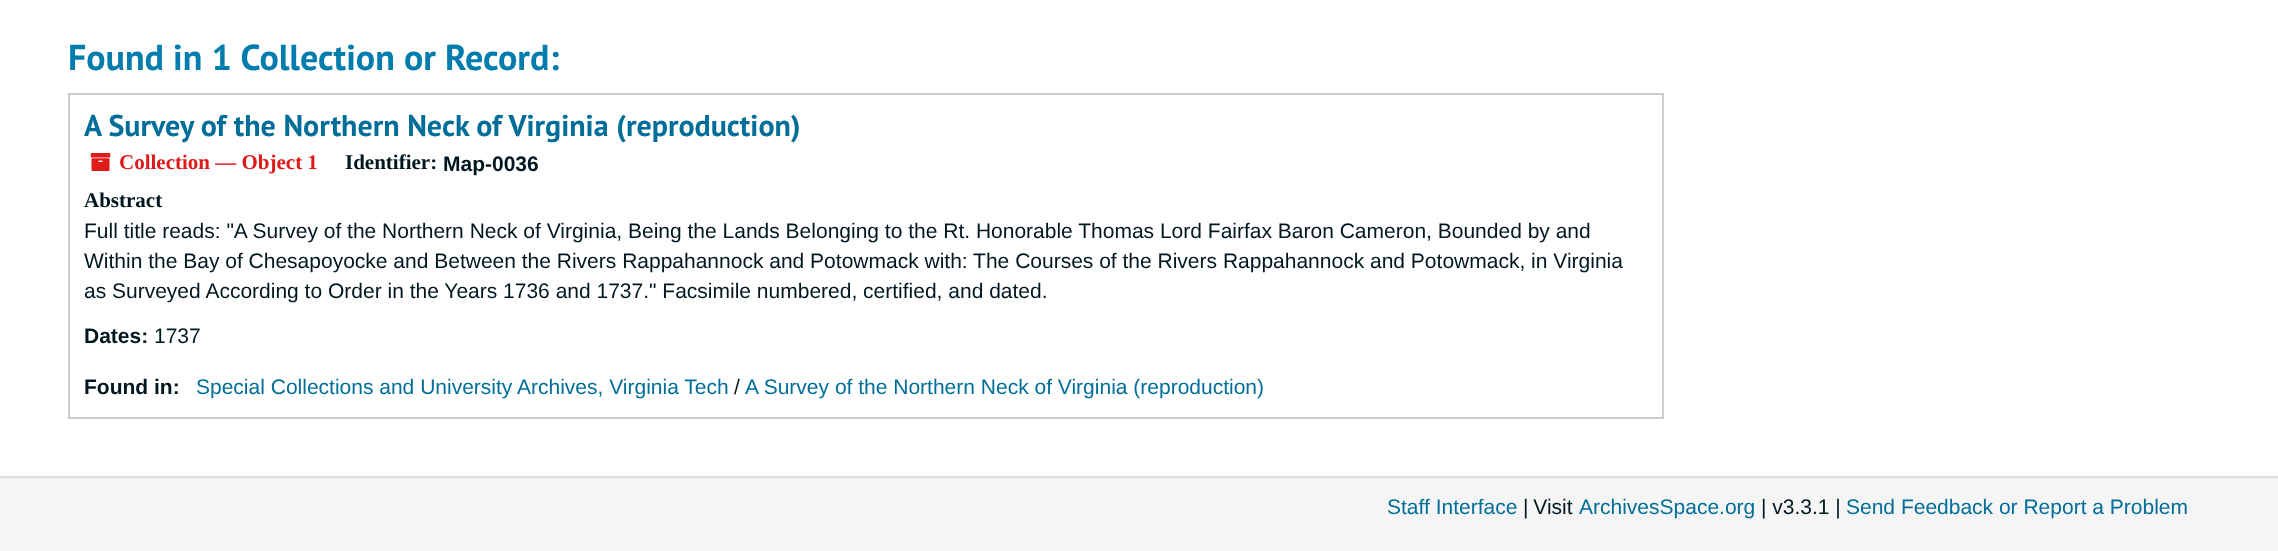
<!DOCTYPE html>
<meta charset="utf-8">
<style>body { margin: 0 } canvas { display: block }</style>
<canvas id="canvas" width="2278" height="551"></canvas>
<img id="img1" src="images/1.png" hidden>
<script>
window.onload = function () {
    const canvas = document.getElementById('canvas');
    const context = canvas.getContext('2d');
    context.miterLimit = 4;
    context.fontKerning = 'normal';

    context.fillStyle = 'rgb(255, 255, 255)';
    context.fillRect(0, 0, 2278, 551);
    context.strokeStyle = 'rgb(204, 204, 204)';
    context.lineWidth = 2;
    context.strokeRect(69, 94, 1594, 324);
    context.drawImage(document.getElementById('img1'), 90, 153, 21, 18);
    context.fillStyle = 'rgb(245, 245, 245)';
    context.beginPath();
    context.moveTo(0, 476);
    context.lineTo(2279, 476);
    context.lineTo(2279, 547);
    context.bezierCurveTo(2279, 550, 2277, 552, 2274, 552);
    context.lineTo(5, 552);
    context.bezierCurveTo(2, 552, 0, 550, 0, 547);
    context.closePath();
    context.fill();
    context.fillStyle = 'rgb(221, 221, 221)';
    context.fillRect(0, 476, 2278, 2);
    context.font = 'bold 36px PT Sans';
    context.fillStyle = 'rgb(0, 124, 173)';
    context.fillText('Found in 1 Collection or Record:', 68, 70);
    context.font = 'bold 30px PT Sans';
    context.fillStyle = 'rgb(0, 110, 153)';
    context.fillText('A Survey of the Northern Neck of Virginia (reproduction)', 84, 136);
    context.font = 'bold 21px Liberation Serif';
    context.fillStyle = 'rgb(224, 25, 25)';
    context.fillText('Collection — Object 1', 119, 169);
    context.fillStyle = 'rgb(0, 23, 31)';
    context.fillText('Identifier:', 345, 169);
    context.font = 'bold 21px Liberation Sans';
    context.fillText('Map-0036', 443, 171);
    context.font = 'bold 21px Liberation Serif';
    context.fillText('Abstract', 84, 207);
    context.font = '21px Liberation Sans';
    context.fillText('Full title reads: "A Survey of the Northern Neck of Virginia, Being the Lands Belonging to the Rt. Honorable Thomas Lord Fairfax Baron Cameron, Bounded by and', 84, 238);
    context.fillText('Within the Bay of Chesapoyocke and Between the Rivers Rappahannock and Potowmack with: The Courses of the Rivers Rappahannock and Potowmack, in Virginia', 84, 268);
    context.fillText('as Surveyed According to Order in the Years 1736 and 1737." Facsimile numbered, certified, and dated.', 84, 298);
    context.font = 'bold 21px Liberation Sans';
    context.fillText('Dates:', 84, 343);
    context.font = '21px Liberation Sans';
    context.fillText('1737', 154, 343);
    context.font = 'bold 21px Liberation Sans';
    context.fillText('Found in:', 84, 394);
    context.font = '21px Liberation Sans';
    context.fillStyle = 'rgb(0, 110, 153)';
    context.fillText('Special Collections and University Archives, Virginia Tech', 196, 394);
    context.fillStyle = 'rgb(0, 23, 31)';
    context.fillText('/', 734, 394);
    context.fillStyle = 'rgb(0, 110, 153)';
    context.fillText('A Survey of the Northern Neck of Virginia (reproduction)', 745, 394);
    context.fillText('Staff Interface', 1387, 514);
    context.wordSpacing = '-1px';
    context.fillStyle = 'rgb(0, 23, 31)';
    context.fillText('| Visit', 1523, 514);
    context.wordSpacing = '0px';
    context.fillStyle = 'rgb(0, 110, 153)';
    context.fillText('ArchivesSpace.org', 1579, 514);
    context.fillStyle = 'rgb(0, 23, 31)';
    context.fillText('| v3.3.1 |', 1761, 514);
    context.fillStyle = 'rgb(0, 110, 153)';
    context.fillText('Send Feedback or Report a Problem', 1846, 514);
};
</script>
